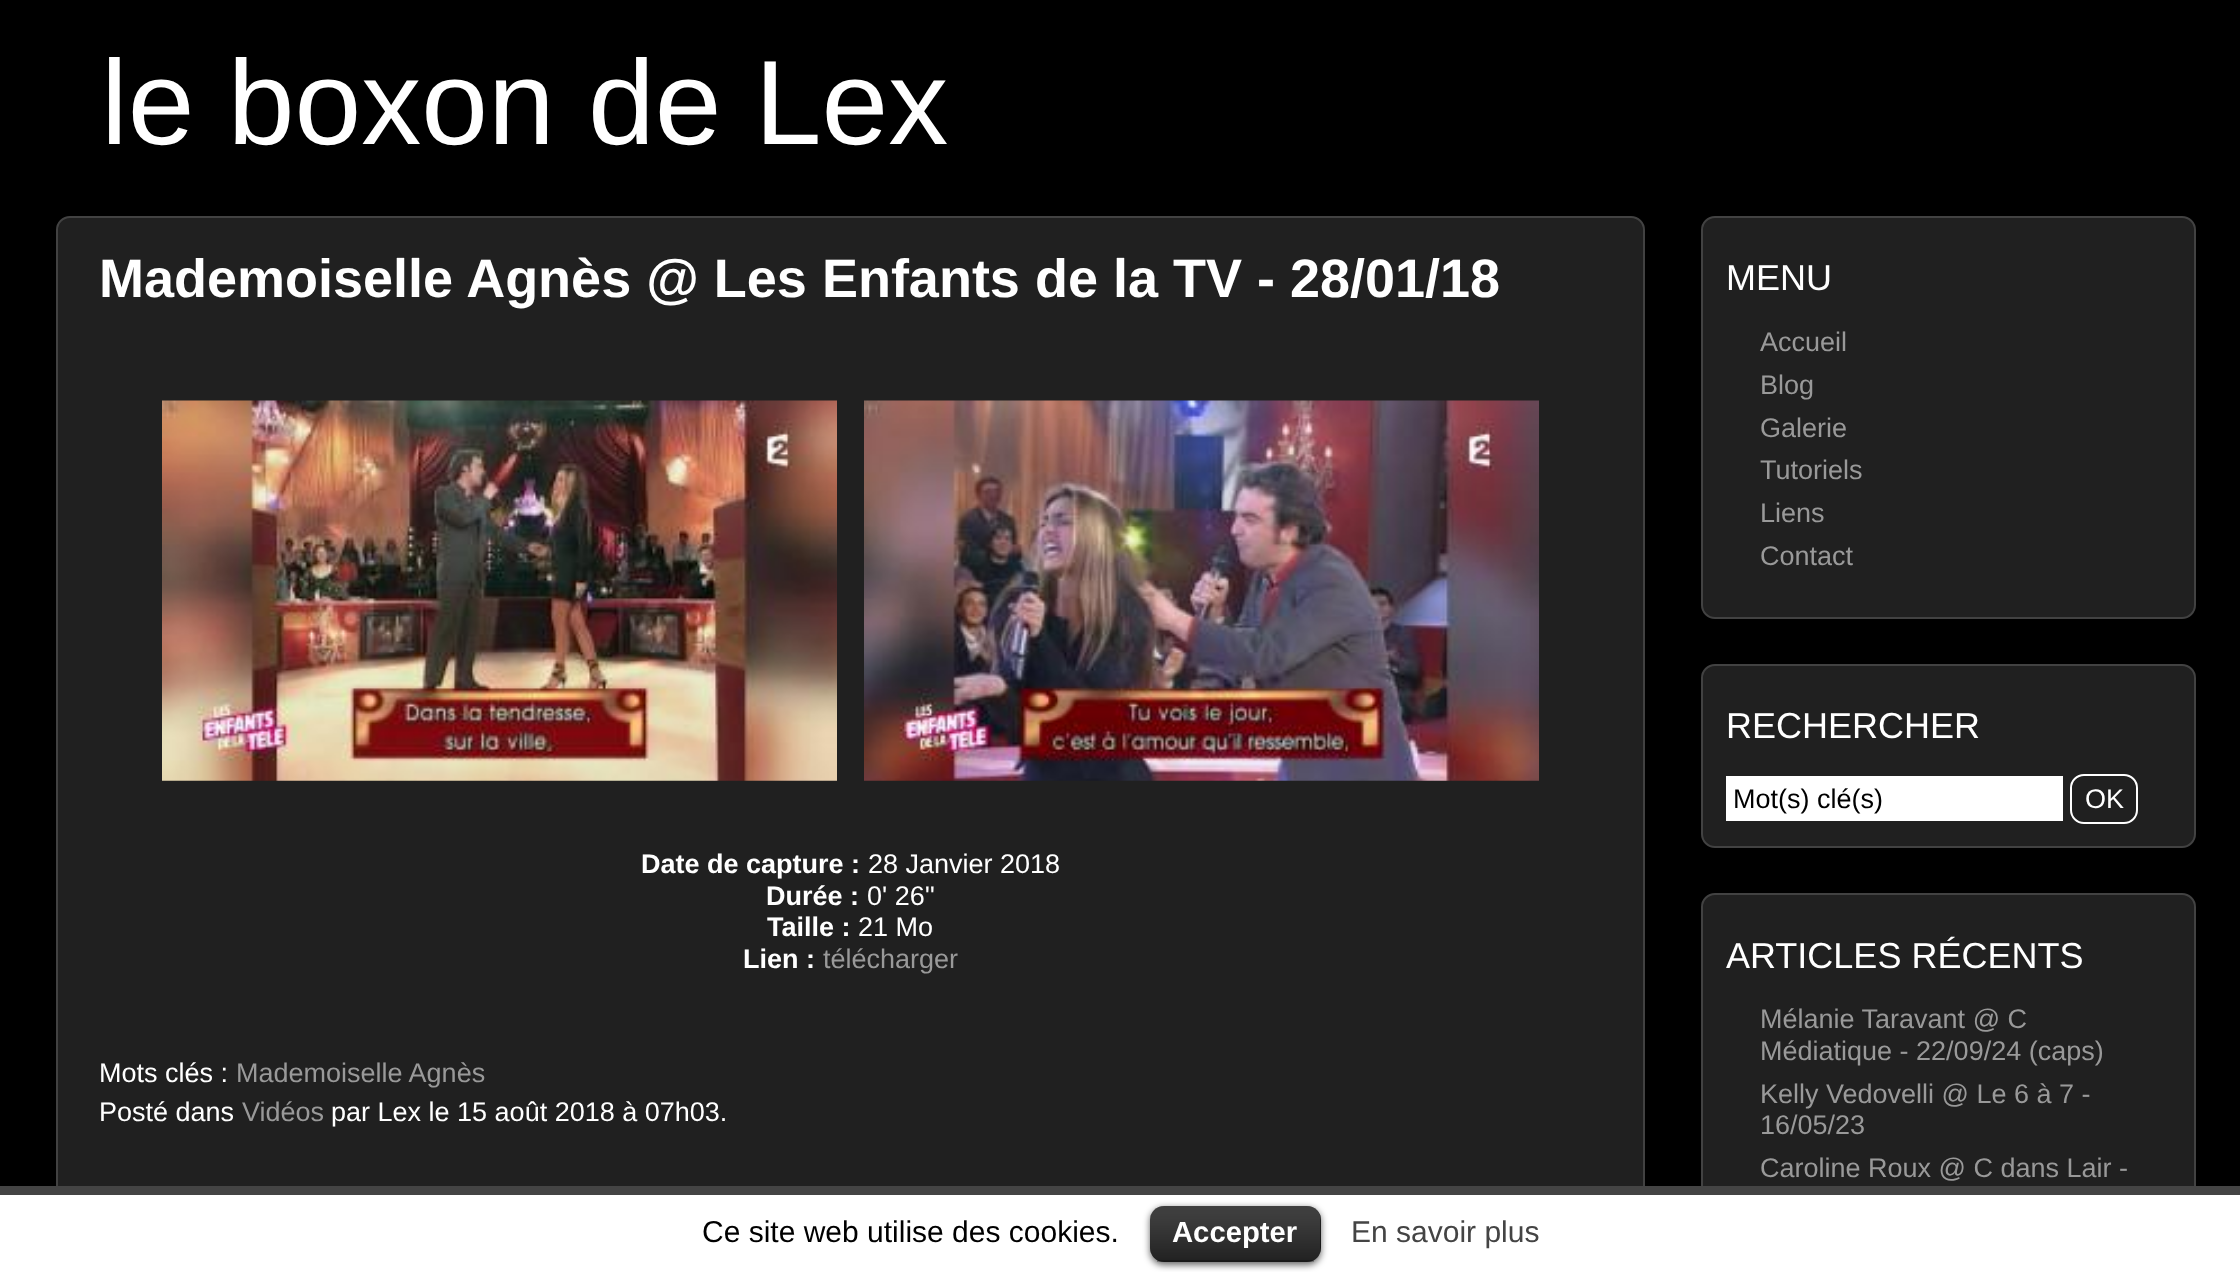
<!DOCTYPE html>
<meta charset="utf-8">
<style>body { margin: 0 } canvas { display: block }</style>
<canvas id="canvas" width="2240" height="1272"></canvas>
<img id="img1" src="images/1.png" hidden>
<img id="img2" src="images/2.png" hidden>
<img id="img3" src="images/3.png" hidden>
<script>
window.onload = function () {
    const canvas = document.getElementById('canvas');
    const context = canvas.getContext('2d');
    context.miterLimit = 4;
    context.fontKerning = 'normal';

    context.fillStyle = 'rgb(0, 0, 0)';
    context.fillRect(0, 0, 2240, 1272);
    context.fillStyle = 'rgb(32, 32, 32)';
    context.beginPath();
    context.roundRect(57, 217, 1587, 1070, 13);
    context.fill();
    context.strokeStyle = 'rgb(66, 66, 66)';
    context.lineWidth = 2;
    context.stroke();
    context.drawImage(document.getElementById('img1'), 162, 400, 675, 381);
    context.drawImage(document.getElementById('img2'), 864, 400, 675, 381);
    context.beginPath();
    context.roundRect(1702, 217, 493, 401, 13);
    context.fill();
    context.stroke();
    context.beginPath();
    context.roundRect(1702, 665, 493, 182, 13);
    context.fill();
    context.stroke();
    context.fillStyle = 'rgb(255, 255, 255)';
    context.fillRect(1726, 776, 337, 45);
    context.beginPath();
    context.roundRect(2071, 775, 66, 48, 13);
    context.strokeStyle = 'rgb(255, 255, 255)';
    context.stroke();
    context.fillStyle = 'rgb(32, 32, 32)';
    context.beginPath();
    context.roundRect(1702, 894, 493, 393, 13);
    context.fill();
    context.strokeStyle = 'rgb(66, 66, 66)';
    context.stroke();
    context.fillStyle = 'rgb(255, 255, 255)';
    context.fillRect(0, 1195, 2240, 77);
    context.fillStyle = 'rgb(68, 68, 68)';
    context.fillRect(0, 1186, 2240, 9);
    context.fillStyle = 'rgba(0, 0, 0, 0.6)';
    context.filter = 'blur(3.5px)';
    context.beginPath();
    context.roundRect(1150, 1208, 171, 57, 14);
    context.fill();
    context.filter = 'none';
    context.fillStyle = 'rgb(0, 0, 0)';
    context.beginPath();
    context.roundRect(1150, 1206, 171, 56, 14);
    context.fill();
    context.drawImage(document.getElementById('img3'), 1150, 1206, 171, 56);
    context.fillStyle = 'rgba(0, 0, 0, 0.25)';
    context.fillRect(1157, 1260, 157, 2);
    context.font = '120px Liberation Sans';
    context.fillStyle = 'rgb(255, 255, 255)';
    context.fillText('le boxon de Lex', 101, 144);
    context.font = 'bold 54px Liberation Sans';
    context.fillText('Mademoiselle Agnès @ Les Enfants de la TV - 28/01/18', 99, 297);
    context.font = 'bold 27px Liberation Sans';
    context.fillText('Date de capture :', 641, 873);
    context.font = '27px Liberation Sans';
    context.fillText('28 Janvier 2018', 868, 873);
    context.font = 'bold 27px Liberation Sans';
    context.fillText('Durée :', 766, 905);
    context.font = '27px Liberation Sans';
    context.fillText('0\' 26\'\'', 867, 905);
    context.font = 'bold 27px Liberation Sans';
    context.fillText('Taille :', 767, 936);
    context.font = '27px Liberation Sans';
    context.fillText('21 Mo', 858, 936);
    context.font = 'bold 27px Liberation Sans';
    context.fillText('Lien :', 743, 968);
    context.font = '27px Liberation Sans';
    context.fillStyle = 'rgb(153, 153, 153)';
    context.fillText('télécharger', 823, 968);
    context.fillStyle = 'rgb(255, 255, 255)';
    context.fillText('Mots clés :', 99, 1082);
    context.fillStyle = 'rgb(153, 153, 153)';
    context.fillText('Mademoiselle Agnès', 236, 1082);
    context.fillStyle = 'rgb(255, 255, 255)';
    context.fillText('Posté dans', 99, 1121);
    context.fillStyle = 'rgb(153, 153, 153)';
    context.fillText('Vidéos', 242, 1121);
    context.fillStyle = 'rgb(255, 255, 255)';
    context.fillText('par Lex le 15 août 2018 à 07h03.', 331, 1121);
    context.font = '36px Liberation Sans';
    context.fillText('MENU', 1726, 290);
    context.font = '27px Liberation Sans';
    context.fillStyle = 'rgb(153, 153, 153)';
    context.fillText('Accueil', 1760, 351);
    context.fillText('Blog', 1760, 394);
    context.fillText('Galerie', 1760, 437);
    context.fillText('Tutoriels', 1760, 479);
    context.fillText('Liens', 1760, 522);
    context.fillText('Contact', 1760, 565);
    context.font = '36px Liberation Sans';
    context.fillStyle = 'rgb(255, 255, 255)';
    context.fillText('RECHERCHER', 1726, 738);
    context.font = '27px Liberation Sans';
    context.fillStyle = 'rgb(0, 0, 0)';
    context.fillText('Mot(s) clé(s)', 1733, 808);
    context.fillStyle = 'rgb(255, 255, 255)';
    context.fillText('OK', 2085, 808);
    context.font = '36px Liberation Sans';
    context.fillText('ARTICLES RÉCENTS', 1726, 968);
    context.font = '27px Liberation Sans';
    context.fillStyle = 'rgb(153, 153, 153)';
    context.fillText('Mélanie Taravant @ C', 1760, 1028);
    context.fillText('Médiatique - 22/09/24 (caps)', 1760, 1060);
    context.fillText('Kelly Vedovelli @ Le 6 à 7 -', 1760, 1103);
    context.fillText('16/05/23', 1760, 1134);
    context.fillText('Caroline Roux @ C dans Lair -', 1760, 1177);
    context.font = '30px Liberation Sans';
    context.fillStyle = 'rgb(0, 0, 0)';
    context.fillText('Ce site web utilise des cookies.', 702, 1242);
    context.font = 'bold 29.25px Liberation Sans';
    context.fillStyle = 'rgb(255, 255, 255)';
    context.fillText('Accepter', 1172, 1242);
    context.font = '30px Liberation Sans';
    context.fillStyle = 'rgb(68, 68, 68)';
    context.fillText('En savoir plus', 1351, 1242);
};
</script>
